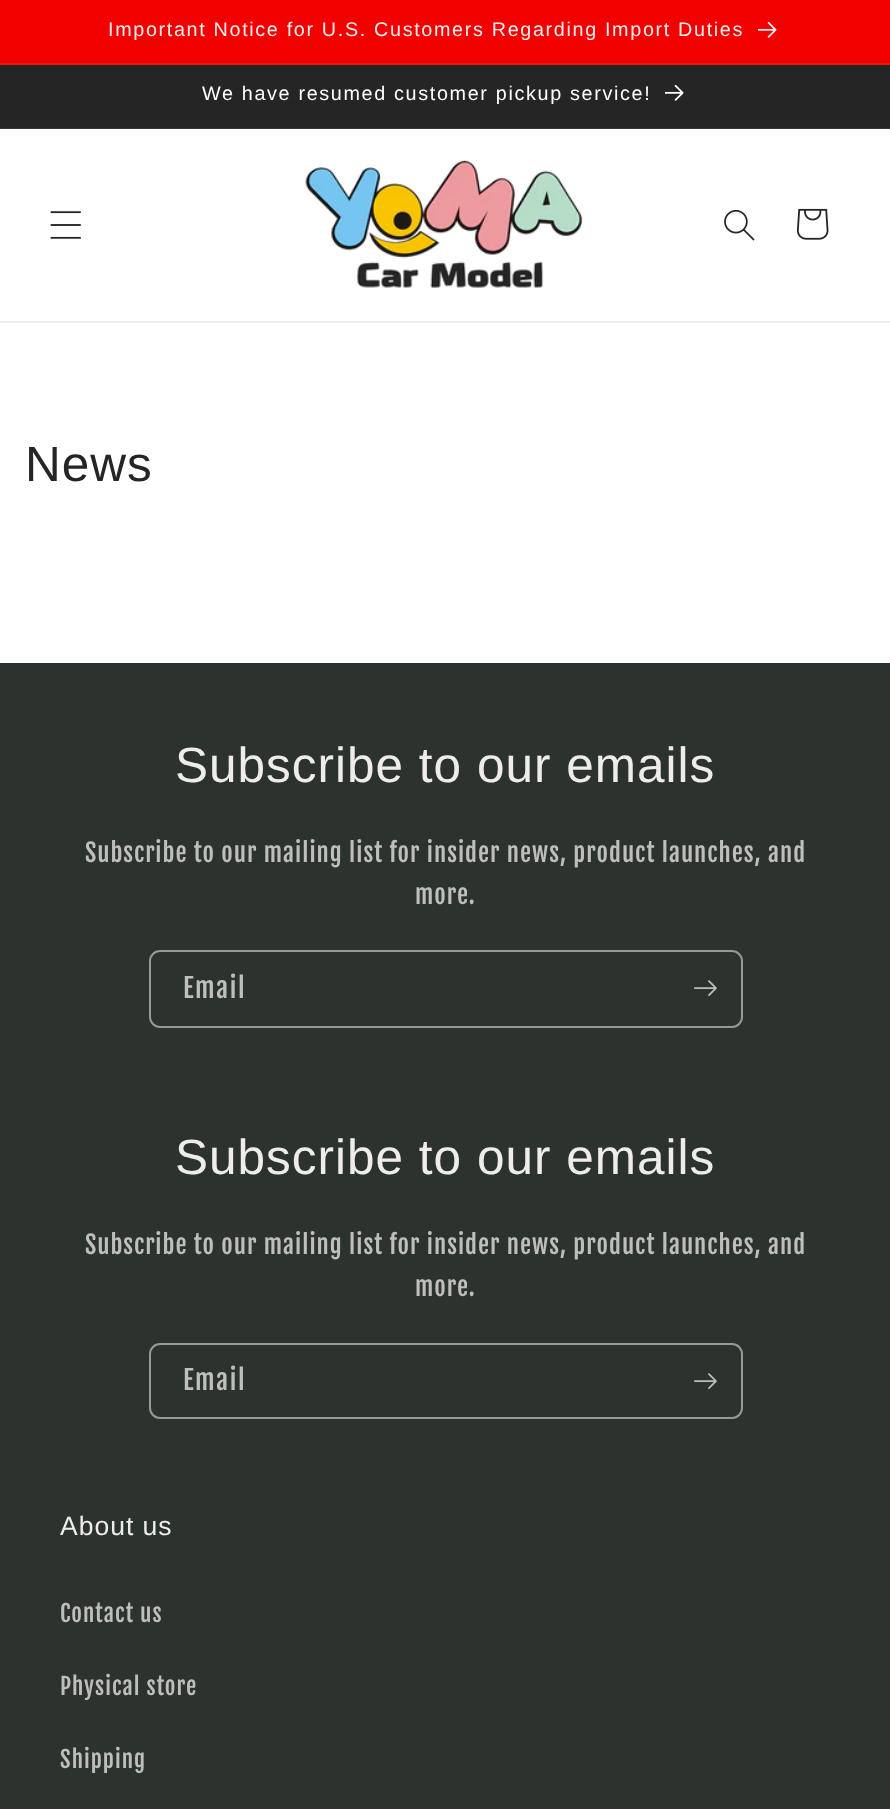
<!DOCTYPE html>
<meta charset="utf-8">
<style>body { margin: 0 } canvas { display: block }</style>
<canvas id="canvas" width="890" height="1809"></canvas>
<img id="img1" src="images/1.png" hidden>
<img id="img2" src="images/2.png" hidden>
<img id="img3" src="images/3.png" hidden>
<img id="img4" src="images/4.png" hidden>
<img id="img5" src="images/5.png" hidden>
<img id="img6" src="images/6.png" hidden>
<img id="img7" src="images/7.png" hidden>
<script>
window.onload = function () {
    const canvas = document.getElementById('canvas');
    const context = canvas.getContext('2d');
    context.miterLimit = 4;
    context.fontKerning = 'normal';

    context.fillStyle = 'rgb(255, 255, 255)';
    context.fillRect(0, 0, 890, 1809);
    context.fillStyle = 'rgb(242, 0, 0)';
    context.fillRect(0, 0, 890, 63);
    context.fillStyle = 'rgb(242, 19, 19)';
    context.fillRect(0, 63, 890, 2);
    context.drawImage(document.getElementById('img1'), 758, 21, 19, 17);
    context.fillStyle = 'rgb(37, 37, 37)';
    context.fillRect(0, 65, 890, 63);
    context.fillStyle = 'rgb(54, 54, 54)';
    context.fillRect(0, 128, 890, 1);
    context.drawImage(document.getElementById('img2'), 665, 84, 19, 17);
    context.fillStyle = 'rgb(238, 238, 238)';
    context.fillRect(0, 321, 890, 2);
    context.drawImage(document.getElementById('img3'), 50, 211, 31, 28);
    context.drawImage(document.getElementById('img4'), 305, 160, 278, 128);
    context.drawImage(document.getElementById('img5'), 724, 209, 31, 32);
    context.drawImage(document.getElementById('img6'), 796, 208, 33, 32);
    context.fillStyle = 'rgb(44, 51, 47)';
    context.fillRect(0, 663, 890, 806);
    context.beginPath();
    context.roundRect(150, 951, 592, 76, 10);
    context.strokeStyle = 'rgb(151, 153, 151)';
    context.lineWidth = 2;
    context.stroke();
    context.drawImage(document.getElementById('img7'), 694, 980, 23, 16);
    context.beginPath();
    context.roundRect(150, 1344, 592, 74, 10);
    context.stroke();
    context.drawImage(document.getElementById('img7'), 694, 1373, 23, 16);
    context.fillRect(0, 1469, 890, 340);
    context.letterSpacing = '1.65px';
    context.font = '19.8px Arimo';
    context.fillStyle = 'rgb(239, 236, 236)';
    context.fillText('Important Notice for U.S. Customers Regarding Import Duties', 108, 36);
    context.fillStyle = 'rgb(255, 255, 255)';
    context.fillText('We have resumed customer pickup service!', 202, 100);
    context.letterSpacing = '1px';
    context.font = '49.5px Arimo';
    context.fillStyle = 'rgb(37, 37, 37)';
    context.fillText('News', 25, 481);
    context.fillStyle = 'rgb(239, 236, 236)';
    context.fillText('Subscribe to our emails', 175, 782);
    context.font = '24.75px Fjalla One';
    context.fillStyle = 'rgb(190, 190, 189)';
    context.fillText('Subscribe to our mailing list for insider news, product launches, and', 85, 862);
    context.fillText('more.', 415, 904);
    context.letterSpacing = '1.65px';
    context.font = '26.5px Fjalla One';
    context.fillText('Email', 183, 998);
    context.letterSpacing = '1px';
    context.font = '49.5px Arimo';
    context.fillStyle = 'rgb(239, 236, 236)';
    context.fillText('Subscribe to our emails', 175, 1174);
    context.font = '24.75px Fjalla One';
    context.fillStyle = 'rgb(190, 190, 189)';
    context.fillText('Subscribe to our mailing list for insider news, product launches, and', 85, 1254);
    context.fillText('more.', 415, 1296);
    context.letterSpacing = '1.65px';
    context.font = '26.5px Fjalla One';
    context.fillText('Email', 183, 1390);
    context.letterSpacing = '1px';
    context.font = '26.5px Arimo';
    context.fillStyle = 'rgb(239, 236, 236)';
    context.fillText('About us', 60, 1535);
    context.font = '23px Fjalla One';
    context.fillStyle = 'rgb(190, 190, 189)';
    context.fillText('Contact us', 60, 1622);
    context.fillText('Physical store', 60, 1695);
    context.fillText('Shipping', 60, 1768);
};
</script>
